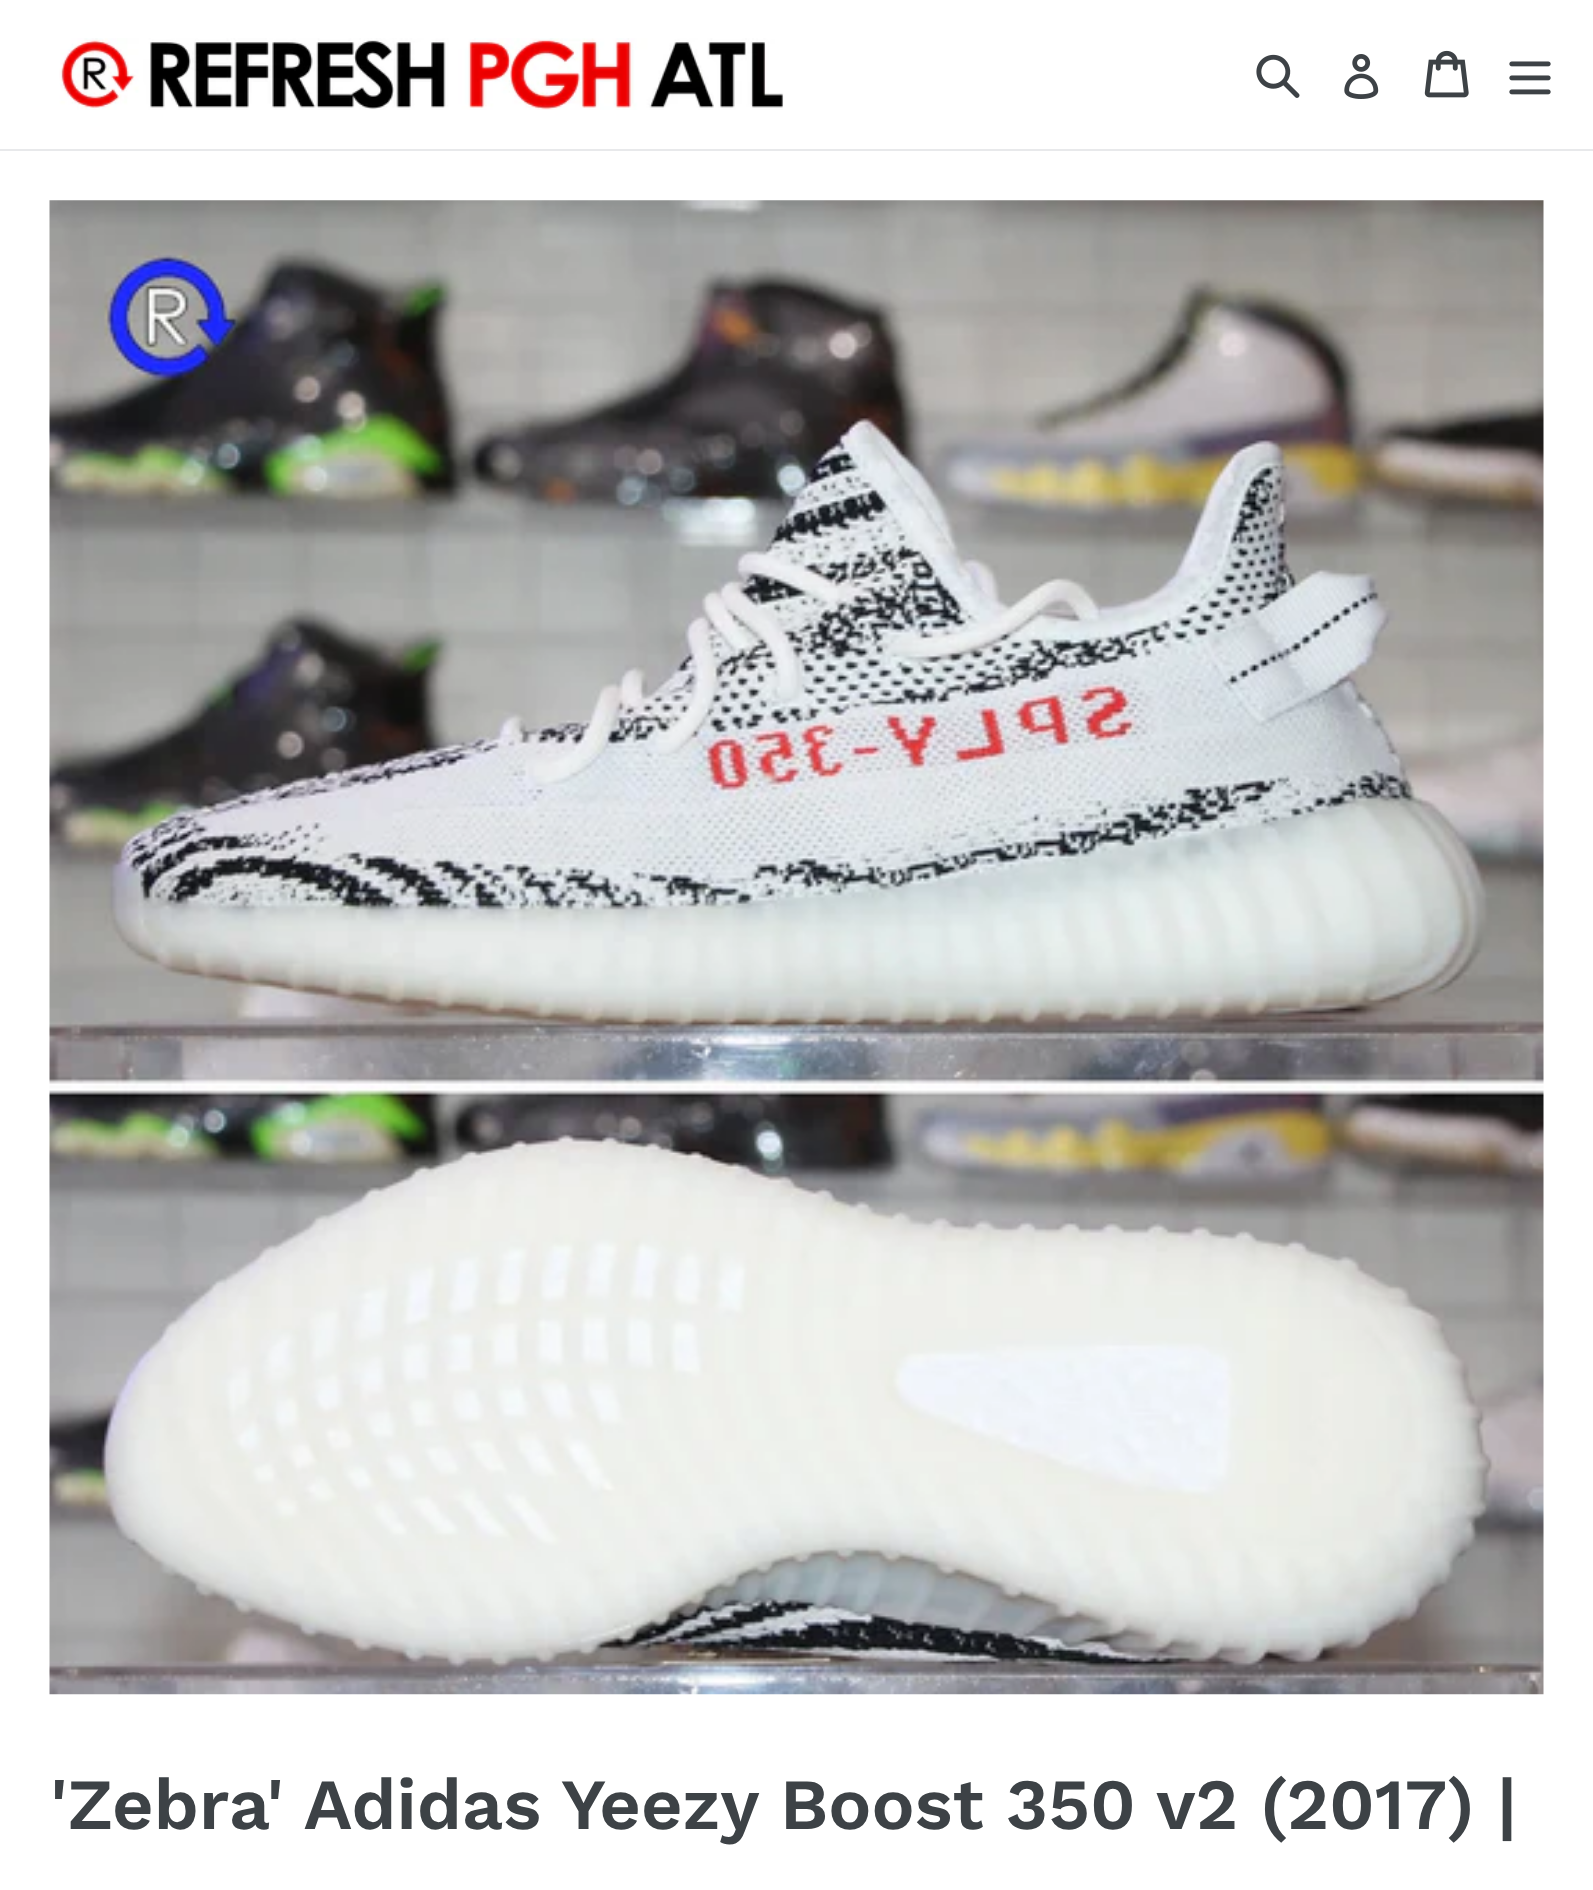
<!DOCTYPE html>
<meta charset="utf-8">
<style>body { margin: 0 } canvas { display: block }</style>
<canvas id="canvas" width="1593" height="1890"></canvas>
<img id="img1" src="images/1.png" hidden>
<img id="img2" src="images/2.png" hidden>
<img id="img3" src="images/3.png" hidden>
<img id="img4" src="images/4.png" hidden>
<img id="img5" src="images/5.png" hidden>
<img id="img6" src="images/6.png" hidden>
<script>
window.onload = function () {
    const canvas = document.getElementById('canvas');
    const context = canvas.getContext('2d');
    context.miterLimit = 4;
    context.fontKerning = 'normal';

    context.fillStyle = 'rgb(255, 255, 255)';
    context.fillRect(0, 0, 1593, 1890);
    context.fillStyle = 'rgb(232, 233, 235)';
    context.fillRect(0, 149, 1593, 2);
    context.drawImage(document.getElementById('img1'), 59, 38, 725, 72);
    context.drawImage(document.getElementById('img2'), 1256, 54, 44, 44);
    context.drawImage(document.getElementById('img3'), 1344, 54, 35, 45);
    context.drawImage(document.getElementById('img4'), 1424, 50, 45, 48);
    context.drawImage(document.getElementById('img5'), 1509, 61, 42, 34);
    context.drawImage(document.getElementById('img6'), 49, 200, 1495, 1495);
    context.font = '600 72px Work Sans';
    context.fillStyle = 'rgb(61, 66, 70)';
    context.fillText('\'Zebra\' Adidas Yeezy Boost 350 v2 (2017) |', 50, 1829);
};
</script>
